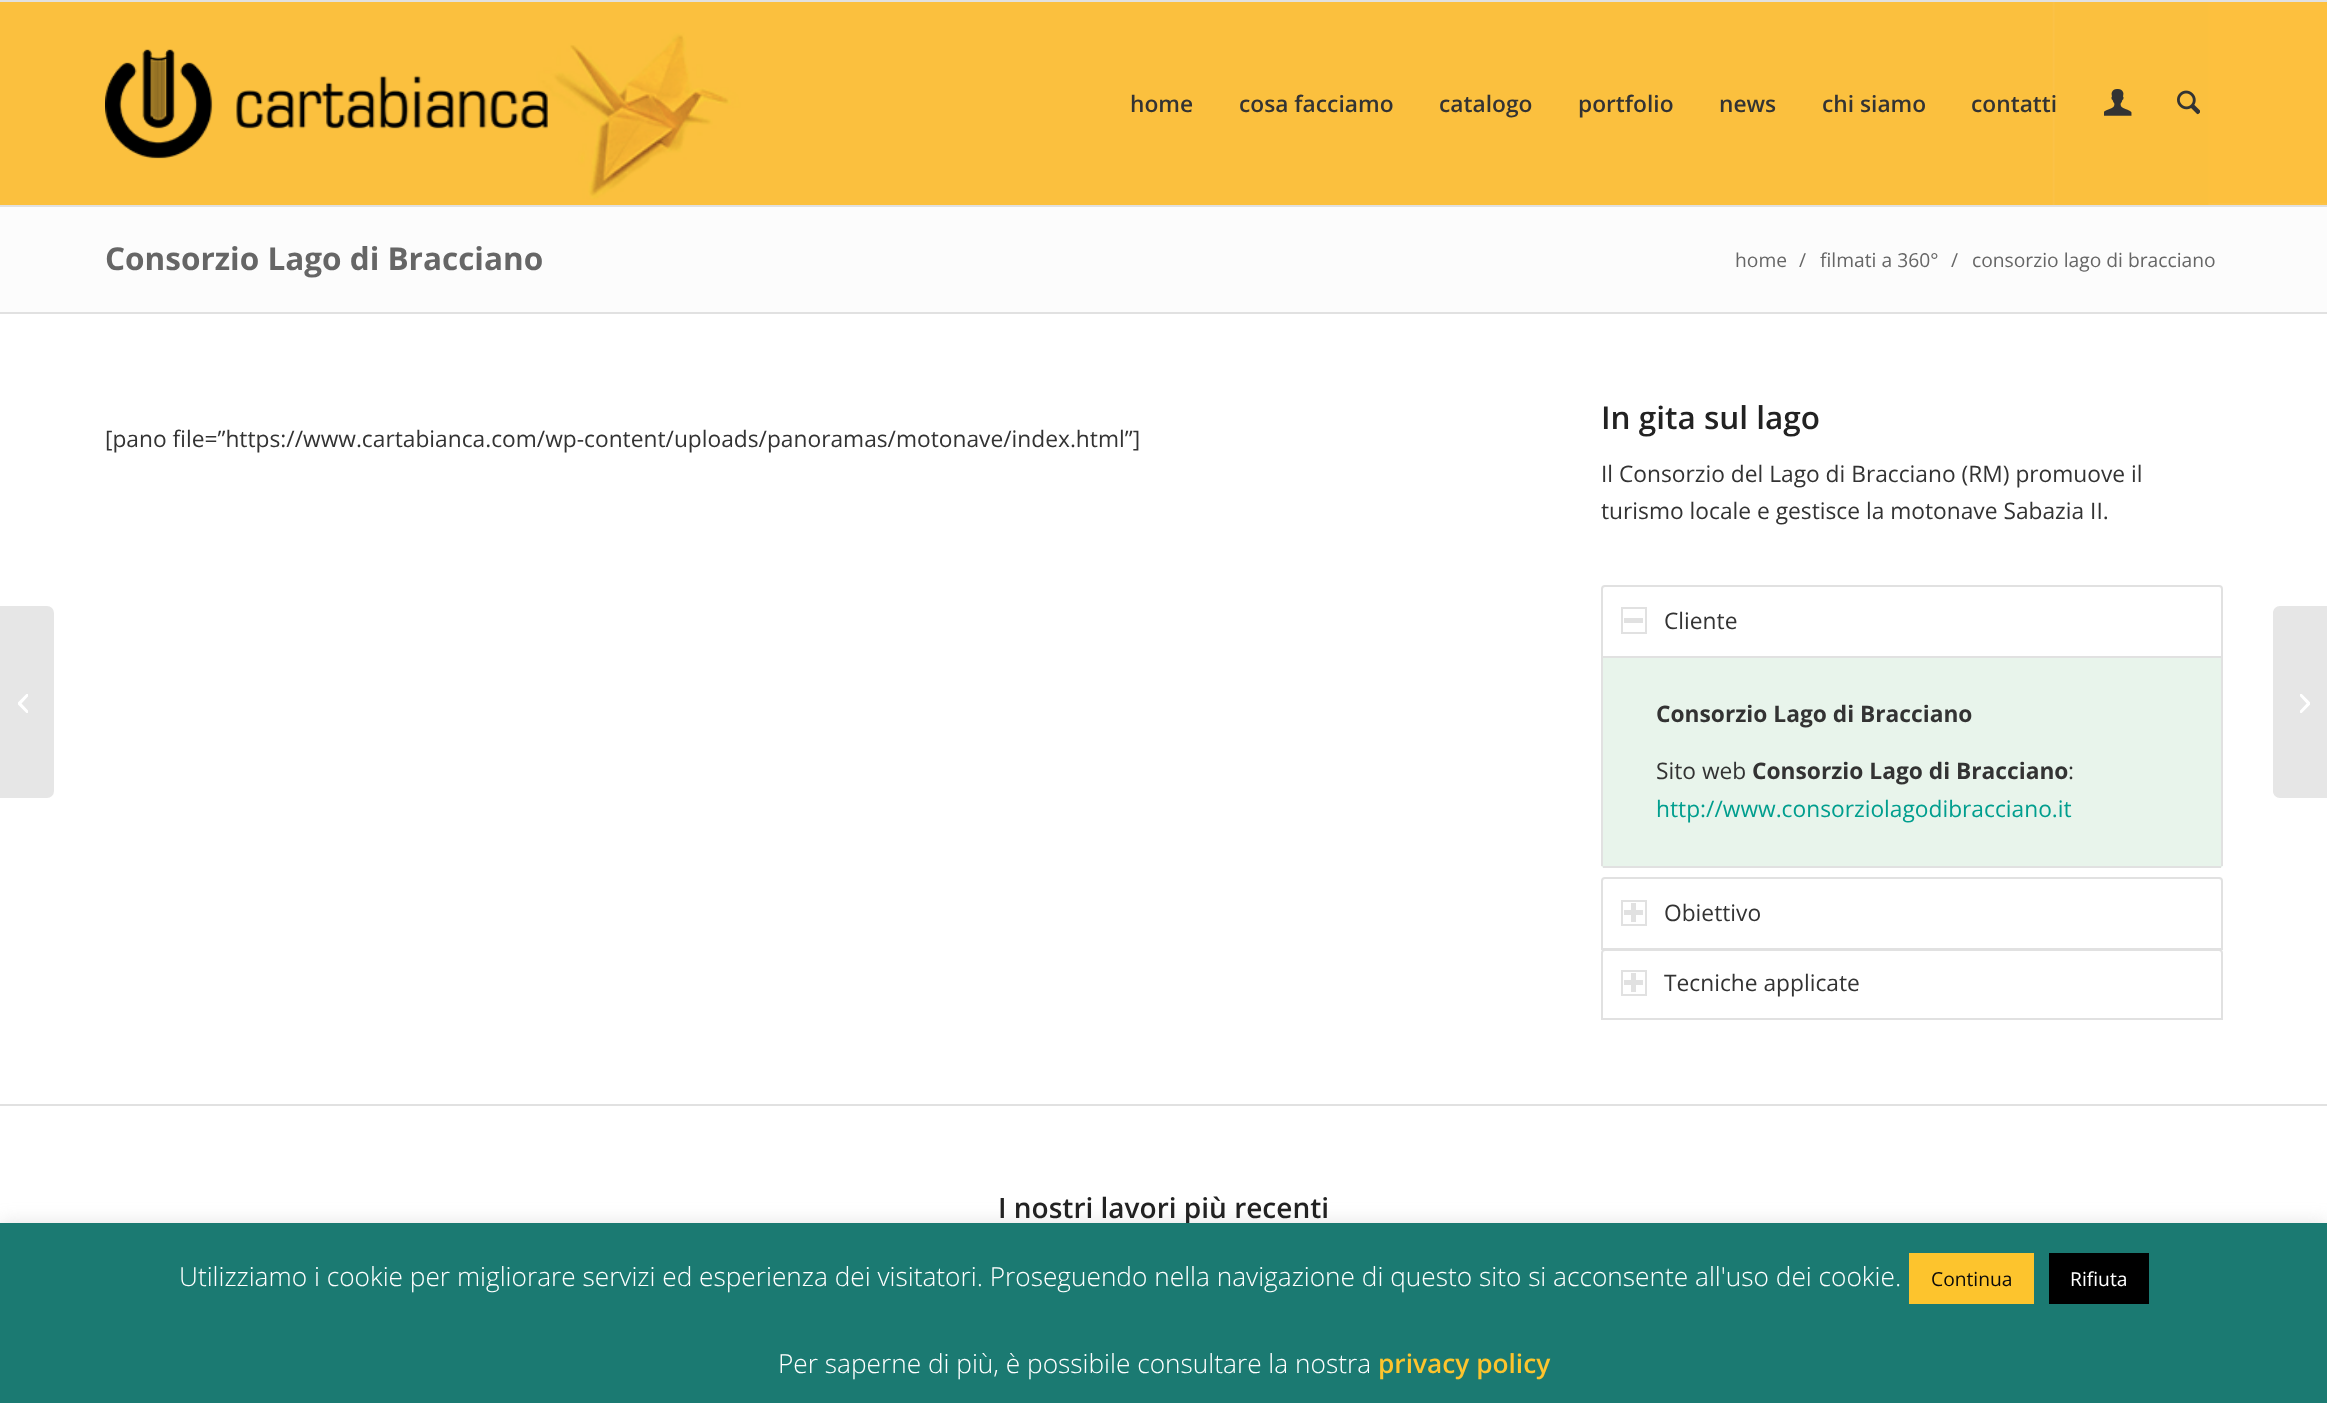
<!DOCTYPE html>
<meta charset="utf-8">
<style>body { margin: 0 } canvas { display: block }</style>
<canvas id="canvas" width="2327" height="1403"></canvas>
<img id="img1" src="images/1.png" hidden>
<img id="img2" src="images/2.png" hidden>
<img id="img3" src="images/3.png" hidden>
<img id="img4" src="images/4.png" hidden>
<img id="img5" src="images/5.png" hidden>
<img id="img6" src="images/6.png" hidden>
<script>
window.onload = function () {
    const canvas = document.getElementById('canvas');
    const context = canvas.getContext('2d');
    context.miterLimit = 4;
    context.fontKerning = 'normal';

    context.fillStyle = 'rgb(253, 192, 62)';
    context.fillRect(0, 0, 2327, 1403);
    context.fillStyle = 'rgb(252, 194, 70)';
    context.fillRect(0, 203, 2327, 2);
    context.drawImage(document.getElementById('img1'), 0, 2, 2209, 203);
    context.fillStyle = 'rgb(225, 225, 225)';
    context.fillRect(0, 0, 2327, 2);
    context.fillRect(0, 205, 2327, 2);
    context.drawImage(document.getElementById('img2'), 105, 49, 443, 110);
    context.drawImage(document.getElementById('img3'), 2104, 89, 28, 27);
    context.drawImage(document.getElementById('img4'), 2177, 90, 23, 25);
    context.fillStyle = 'rgb(255, 255, 255)';
    context.fillRect(0, 314, 2327, 790);
    context.fillStyle = 'rgb(230, 230, 230)';
    context.beginPath();
    context.roundRect(0, 606, 54, 192, [0, 7, 7, 0]);
    context.fill();
    context.drawImage(document.getElementById('img5'), 18, 694, 10, 19);
    context.fillStyle = 'rgb(252, 252, 252)';
    context.fillRect(0, 207, 2327, 105);
    context.fillStyle = 'rgb(225, 225, 225)';
    context.fillRect(0, 312, 2327, 2);
    context.fillStyle = 'rgb(232, 244, 235)';
    context.beginPath();
    context.roundRect(1601, 656, 622, 212, [0, 0, 4, 4]);
    context.fill();
    context.fillStyle = 'rgb(225, 225, 225)';
    context.fillRect(2221, 656, 2, 210);
    context.fillRect(1601, 656, 2, 210);
    context.fillStyle = 'rgb(255, 255, 255)';
    context.beginPath();
    context.roundRect(1602, 586, 620, 71, [3, 3, 0, 0]);
    context.fill();
    context.strokeStyle = 'rgb(225, 225, 225)';
    context.lineWidth = 2;
    context.stroke();
    context.strokeRect(1622, 608, 24, 25);
    context.fillStyle = 'rgb(225, 225, 225)';
    context.fillRect(1624, 618, 19, 5);
    context.fillRect(1603, 866, 618, 2);
    context.beginPath();
    context.roundRect(1602, 878, 620, 71, [3, 3, 0, 0]);
    context.stroke();
    context.strokeRect(1622, 901, 24, 24);
    context.fillRect(1631, 903, 5, 19);
    context.fillRect(1624, 910, 19, 5);
    context.fillStyle = 'rgb(255, 255, 255)';
    context.beginPath();
    context.roundRect(1602, 950, 620, 69, [3, 3, 0, 0]);
    context.fill();
    context.stroke();
    context.strokeRect(1622, 971, 24, 24);
    context.fillStyle = 'rgb(225, 225, 225)';
    context.fillRect(1631, 973, 5, 19);
    context.fillRect(1624, 980, 19, 5);
    context.fillStyle = 'rgb(255, 255, 255)';
    context.fillRect(0, 1106, 2327, 117);
    context.fillStyle = 'rgb(225, 225, 225)';
    context.fillRect(0, 1104, 2327, 2);
    context.fillStyle = 'rgb(230, 230, 230)';
    context.beginPath();
    context.moveTo(2280, 606);
    context.lineTo(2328, 606);
    context.lineTo(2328, 798);
    context.lineTo(2280, 798);
    context.bezierCurveTo(2276, 798, 2273, 795, 2273, 791);
    context.lineTo(2273, 613);
    context.bezierCurveTo(2273, 609, 2276, 606, 2280, 606);
    context.closePath();
    context.fill();
    context.drawImage(document.getElementById('img6'), 2300, 694, 10, 19);
    context.fillStyle = 'rgba(172, 171, 171, 0.3)';
    context.filter = 'blur(9px)';
    context.beginPath();
    context.rect(0, 1222, 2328, 180);
    context.fill();
    context.filter = 'none';
    context.font = '600 22.75px Open Sans';
    context.fillStyle = 'rgb(51, 51, 51)';
    context.fillText('home', 1130, 112);
    context.fillText('cosa facciamo', 1239, 112);
    context.fillText('catalogo', 1439, 112);
    context.fillText('portfolio', 1578, 112);
    context.fillText('news', 1719, 112);
    context.fillText('chi siamo', 1822, 112);
    context.fillText('contatti', 1971, 112);
    context.font = 'bold 31.5px Open Sans';
    context.fillStyle = 'rgb(102, 102, 102)';
    context.fillText('Consorzio Lago di Bracciano', 105, 270);
    context.font = '19.25px Open Sans';
    context.fillText('home', 1735, 267);
    context.fillText('/', 1799, 267);
    context.fillText('filmati a 360°', 1820, 267);
    context.fillText('/', 1951, 267);
    context.fillText('consorzio lago di bracciano', 1972, 267);
    context.font = '22.75px Open Sans';
    context.fillStyle = 'rgb(51, 51, 51)';
    context.fillText('[pano file=”https://www.cartabianca.com/wp-content/uploads/panoramas/motonave/index.html”]', 105, 447);
    context.font = '600 31.5px Open Sans';
    context.fillStyle = 'rgb(34, 34, 34)';
    context.fillText('In gita sul lago', 1601, 429);
    context.font = '22.75px Open Sans';
    context.fillStyle = 'rgb(51, 51, 51)';
    context.fillText('Il Consorzio del Lago di Bracciano (RM) promuove il', 1601, 482);
    context.fillText('turismo locale e gestisce la motonave Sabazia II.', 1601, 519);
    context.fillText('Cliente', 1664, 629);
    context.font = 'bold 22.75px Open Sans';
    context.fillText('Consorzio Lago di Bracciano', 1656, 722);
    context.font = '22.75px Open Sans';
    context.fillText('Sito web', 1656, 779);
    context.font = 'bold 22.75px Open Sans';
    context.fillText('Consorzio Lago di Bracciano', 1752, 779);
    context.font = '22.75px Open Sans';
    context.fillText(':', 2068, 779);
    context.fillStyle = 'rgb(0, 158, 142)';
    context.fillText('http://www.consorziolagodibracciano.it', 1656, 817);
    context.fillStyle = 'rgb(51, 51, 51)';
    context.fillText('Obiettivo', 1664, 921);
    context.fillText('Tecniche applicate', 1664, 991);
    context.font = '600 28px Open Sans';
    context.fillStyle = 'rgb(34, 34, 34)';
    context.fillText('I nostri lavori più recenti', 998, 1218);
    context.fillStyle = 'rgb(27, 122, 114)';
    context.fillRect(0, 1223, 2327, 180);
    context.font = '300 26.25px Open Sans';
    context.fillStyle = 'rgb(255, 255, 255)';
    context.fillText('Utilizziamo i cookie per migliorare servizi ed esperienza dei visitatori. Proseguendo nella navigazione di questo sito si acconsente all\'uso dei cookie.', 179, 1286);
    context.fillStyle = 'rgb(253, 196, 45)';
    context.fillRect(1909, 1253, 125, 51);
    context.font = '19.25px Open Sans';
    context.fillStyle = 'rgb(10, 10, 10)';
    context.fillText('Continua', 1931, 1286);
    context.fillStyle = 'rgb(0, 0, 0)';
    context.fillRect(2049, 1253, 100, 51);
    context.fillStyle = 'rgb(255, 255, 255)';
    context.fillText('Rifiuta', 2070, 1286);
    context.font = '300 26.25px Open Sans';
    context.fillText('Per saperne di più, è possibile consultare la nostra', 778, 1373);
    context.font = '600 26.25px Open Sans';
    context.fillStyle = 'rgb(253, 196, 45)';
    context.fillText('privacy policy', 1378, 1373);
};
</script>
